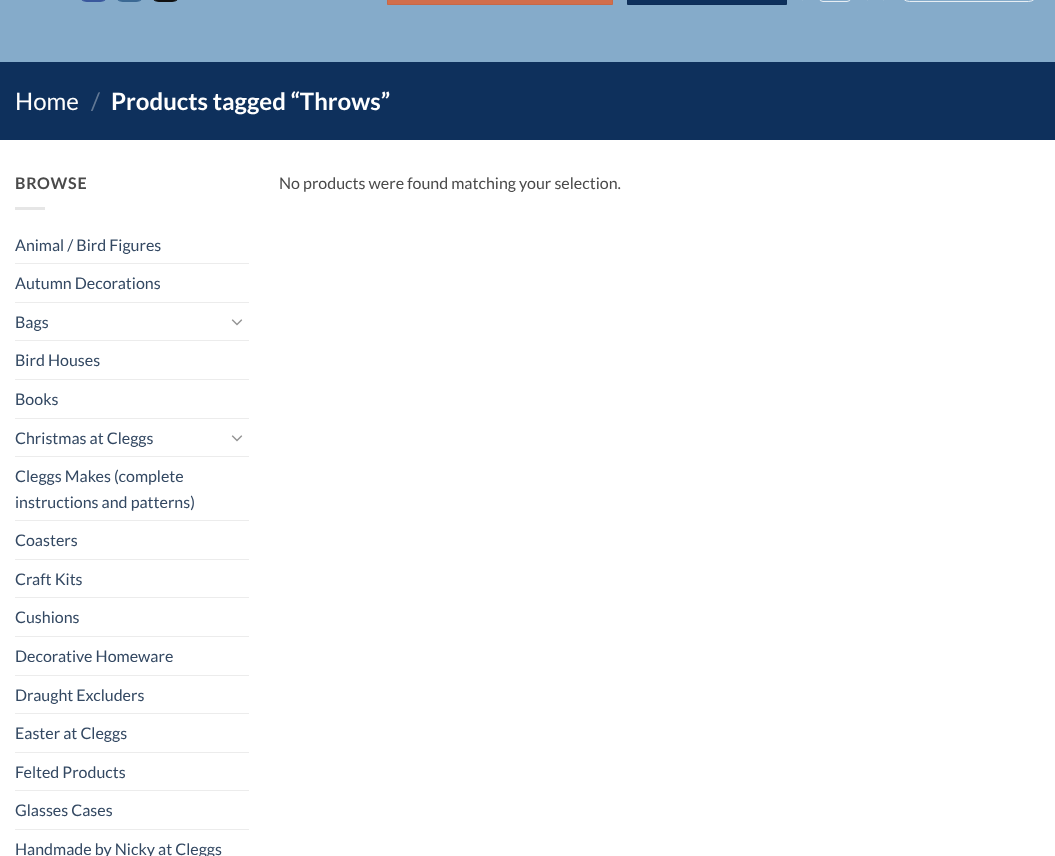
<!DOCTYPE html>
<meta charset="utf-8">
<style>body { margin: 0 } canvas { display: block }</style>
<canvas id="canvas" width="1055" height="856"></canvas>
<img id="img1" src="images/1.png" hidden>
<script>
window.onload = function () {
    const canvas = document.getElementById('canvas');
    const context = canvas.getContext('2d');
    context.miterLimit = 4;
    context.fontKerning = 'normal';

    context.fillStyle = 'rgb(255, 255, 255)';
    context.fillRect(0, 0, 1055, 856);
    context.fillStyle = 'rgb(133, 171, 202)';
    context.fillRect(0, 0, 1055, 62);
    context.fillStyle = 'rgb(58, 88, 157)';
    context.beginPath();
    context.roundRect(77.5, -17.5, 32, 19, 16);
    context.fill();
    context.strokeStyle = 'rgb(58, 88, 157)';
    context.stroke();
    context.fillStyle = 'rgb(59, 105, 148)';
    context.beginPath();
    context.roundRect(113.5, -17.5, 32, 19, 16);
    context.fill();
    context.strokeStyle = 'rgb(59, 105, 148)';
    context.stroke();
    context.fillStyle = 'rgb(17, 17, 17)';
    context.beginPath();
    context.roundRect(149.5, -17.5, 32, 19, 16);
    context.fill();
    context.strokeStyle = 'rgb(17, 17, 17)';
    context.stroke();
    context.fillStyle = 'rgb(210, 110, 75)';
    context.beginPath();
    context.roundRect(387, -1, 226, 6, 1);
    context.fill();
    context.strokeStyle = 'rgba(0, 0, 0, 0.05)';
    context.strokeRect(387.5, -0.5, 225, 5);
    context.fillStyle = 'rgb(14, 48, 92)';
    context.beginPath();
    context.roundRect(627, -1, 160, 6, 1);
    context.fill();
    context.strokeRect(627.5, -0.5, 159, 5);
    context.fillStyle = 'rgb(145, 179, 207)';
    context.fillRect(802, 0, 1, 1);
    context.beginPath();
    context.roundRect(819.5, -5.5, 31, 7, 4.5);
    context.strokeStyle = 'rgb(231, 238, 244)';
    context.stroke();
    context.fillRect(867, 0, 1, 1);
    context.fillRect(883, 0, 1, 1);
    context.beginPath();
    context.roundRect(900.5, -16.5, 137, 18, 15.5);
    context.stroke();
    context.fillStyle = 'rgb(14, 48, 92)';
    context.fillRect(0, 62, 1055, 78);
    context.fillStyle = 'rgb(230, 230, 230)';
    context.fillRect(15, 207, 30, 3);
    context.fillStyle = 'rgb(236, 236, 236)';
    context.fillRect(15, 263, 234, 1);
    context.fillRect(15, 302, 234, 1);
    context.drawImage(document.getElementById('img1'), 231, 319, 12, 7);
    context.fillRect(15, 340, 234, 1);
    context.fillRect(15, 379, 234, 1);
    context.fillRect(15, 418, 234, 1);
    context.drawImage(document.getElementById('img1'), 231, 435, 12, 7);
    context.fillRect(15, 456, 234, 1);
    context.fillRect(15, 520, 234, 1);
    context.fillRect(15, 559, 234, 1);
    context.fillRect(15, 597, 234, 1);
    context.fillRect(15, 636, 234, 1);
    context.fillRect(15, 675, 234, 1);
    context.fillRect(15, 713, 234, 1);
    context.fillRect(15, 752, 234, 1);
    context.fillRect(15, 790, 234, 1);
    context.fillRect(15, 829, 234, 1);
    context.font = '24px Lato';
    context.fillStyle = 'rgb(255, 255, 255)';
    context.fillText('Home', 15, 110);
    context.fillStyle = 'rgb(98, 120, 149)';
    context.fillText('/', 91, 110);
    context.font = 'bold 24px Lato';
    context.fillStyle = 'rgb(255, 255, 255)';
    context.fillText('Products tagged “Throws”', 111, 110);
    context.letterSpacing = '0.75px';
    context.font = 'bold 16px Lato';
    context.fillStyle = 'rgb(74, 74, 74)';
    context.fillText('BROWSE', 15, 189);
    context.letterSpacing = '0px';
    context.font = '16px Lato';
    context.fillStyle = 'rgb(51, 72, 98)';
    context.fillText('Animal / Bird Figures', 15, 251);
    context.fillText('Autumn Decorations', 15, 289);
    context.fillText('Bags', 15, 328);
    context.fillText('Bird Houses', 15, 366);
    context.fillText('Books', 15, 405);
    context.fillText('Christmas at Cleggs', 15, 444);
    context.fillText('Cleggs Makes (complete', 15, 482);
    context.fillText('instructions and patterns)', 15, 508);
    context.fillText('Coasters', 15, 546);
    context.fillText('Craft Kits', 15, 585);
    context.fillText('Cushions', 15, 623);
    context.fillText('Decorative Homeware', 15, 662);
    context.fillText('Draught Excluders', 15, 701);
    context.fillText('Easter at Cleggs', 15, 739);
    context.fillText('Felted Products', 15, 778);
    context.fillText('Glasses Cases', 15, 816);
    context.fillText('Handmade by Nicky at Cleggs', 15, 855);
    context.fillStyle = 'rgb(74, 74, 74)';
    context.fillText('No products were found matching your selection.', 279, 189);
};
</script>
